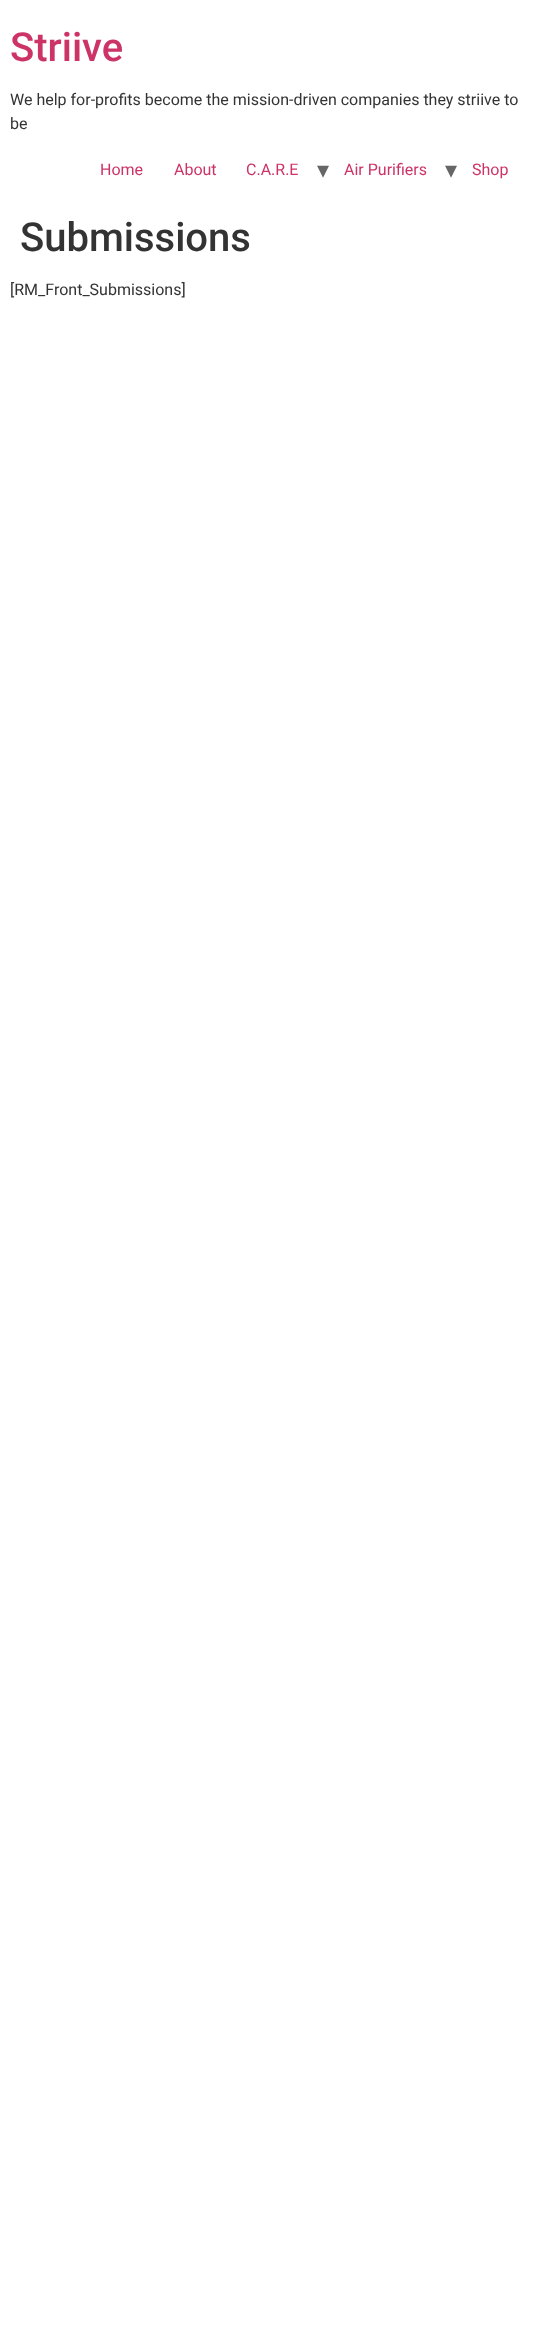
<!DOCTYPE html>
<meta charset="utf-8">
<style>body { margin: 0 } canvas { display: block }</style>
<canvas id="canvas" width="533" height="2342"></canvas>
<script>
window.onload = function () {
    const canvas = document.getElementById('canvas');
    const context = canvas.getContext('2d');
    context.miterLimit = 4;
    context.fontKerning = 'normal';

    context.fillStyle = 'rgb(255, 255, 255)';
    context.fillRect(0, 0, 533, 2342);
    context.font = '500 40px Roboto';
    context.fillStyle = 'rgb(204, 51, 102)';
    context.fillText('Striive', 10, 61);
    context.font = '16px Roboto';
    context.fillStyle = 'rgb(51, 51, 51)';
    context.fillText('We help for-profits become the mission-driven companies they striive to', 10, 105);
    context.fillText('be', 10, 129);
    context.fillStyle = 'rgb(204, 51, 102)';
    context.fillText('Home', 100, 175);
    context.fillText('About', 174, 175);
    context.fillText('C.A.R.E', 246, 175);
    context.font = '24px DejaVu Sans';
    context.fillStyle = 'rgb(102, 102, 102)';
    context.fillText('▾', 317, 178);
    context.font = '16px Roboto';
    context.fillStyle = 'rgb(204, 51, 102)';
    context.fillText('Air Purifiers', 344, 175);
    context.font = '24px DejaVu Sans';
    context.fillStyle = 'rgb(102, 102, 102)';
    context.fillText('▾', 445, 178);
    context.font = '16px Roboto';
    context.fillStyle = 'rgb(204, 51, 102)';
    context.fillText('Shop', 472, 175);
    context.font = '500 40px Roboto';
    context.fillStyle = 'rgb(51, 51, 51)';
    context.fillText('Submissions', 20, 251);
    context.font = '16px Roboto';
    context.fillText('[RM_Front_Submissions]', 10, 295);
};
</script>
